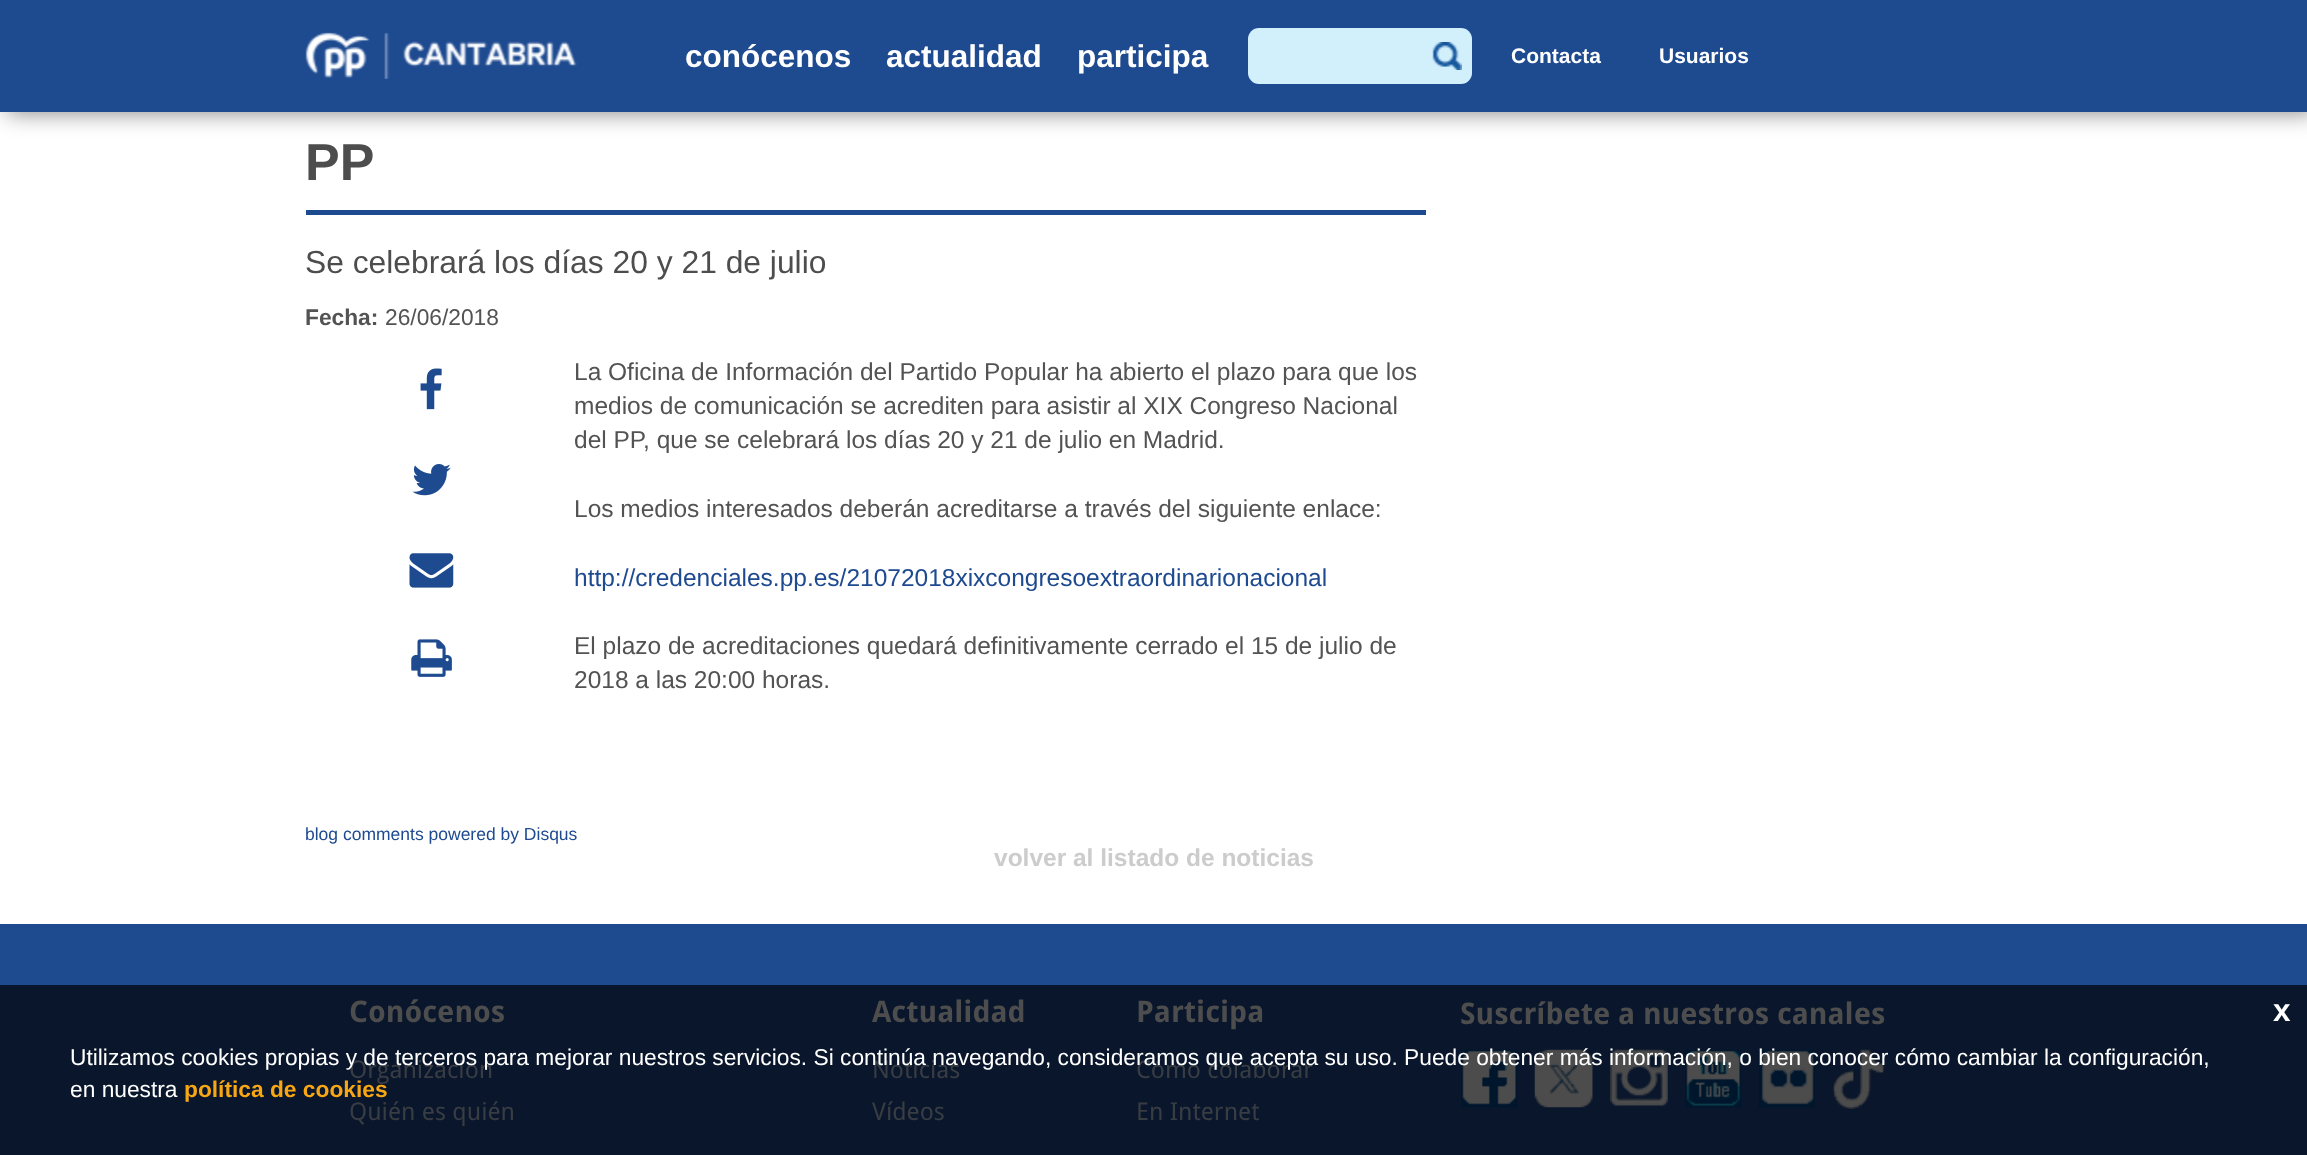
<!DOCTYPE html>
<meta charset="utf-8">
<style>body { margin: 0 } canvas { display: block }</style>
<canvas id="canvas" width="2307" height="1155"></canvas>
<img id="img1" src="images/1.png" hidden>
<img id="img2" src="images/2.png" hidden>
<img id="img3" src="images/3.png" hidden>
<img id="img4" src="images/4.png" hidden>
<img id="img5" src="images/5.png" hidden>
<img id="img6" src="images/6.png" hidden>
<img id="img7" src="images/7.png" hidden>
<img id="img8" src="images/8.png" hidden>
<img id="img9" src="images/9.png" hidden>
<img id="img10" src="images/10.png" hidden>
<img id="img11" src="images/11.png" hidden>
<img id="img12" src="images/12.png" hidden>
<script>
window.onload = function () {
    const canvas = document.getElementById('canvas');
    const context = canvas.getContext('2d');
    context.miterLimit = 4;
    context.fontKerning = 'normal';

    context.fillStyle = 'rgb(255, 255, 255)';
    context.fillRect(0, 0, 2307, 1155);
    context.fillStyle = 'rgba(0, 0, 0, 0.5)';
    context.filter = 'blur(11.5px)';
    context.beginPath();
    context.rect(7, 0, 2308, 112);
    context.fill();
    context.filter = 'none';
    context.fillStyle = 'rgb(30, 74, 144)';
    context.fillRect(0, 0, 2307, 112);
    context.drawImage(document.getElementById('img1'), 305, 32, 272, 47);
    context.fillStyle = 'rgb(210, 239, 252)';
    context.beginPath();
    context.roundRect(1248, 28, 224, 56, 11);
    context.fill();
    context.fillRect(1258, 28, 1, 56);
    context.drawImage(document.getElementById('img2'), 1432, 42, 30, 28);
    context.fillStyle = 'rgb(30, 74, 144)';
    context.fillRect(306, 210, 1120, 5);
    context.drawImage(document.getElementById('img3'), 420, 368, 22, 42);
    context.drawImage(document.getElementById('img4'), 412, 464, 39, 32);
    context.drawImage(document.getElementById('img5'), 409, 553, 45, 35);
    context.drawImage(document.getElementById('img6'), 411, 639, 41, 38);
    context.fillRect(0, 924, 2307, 61);
    context.fillStyle = 'rgb(9, 22, 43)';
    context.fillRect(0, 985, 2307, 170);
    context.drawImage(document.getElementById('img7'), 1461, 1049, 57, 59);
    context.drawImage(document.getElementById('img8'), 1534, 1049, 59, 59);
    context.drawImage(document.getElementById('img9'), 1610, 1049, 58, 57);
    context.drawImage(document.getElementById('img10'), 1685, 1049, 57, 59);
    context.drawImage(document.getElementById('img11'), 1758, 1049, 57, 59);
    context.drawImage(document.getElementById('img12'), 1832, 1049, 53, 60);
    context.font = 'bold 31.5px Liberation Sans';
    context.fillStyle = 'rgb(255, 255, 255)';
    context.fillText('conócenos', 685, 67);
    context.fillText('actualidad', 886, 67);
    context.fillText('participa', 1077, 67);
    context.font = 'bold 21px Liberation Sans';
    context.fillText('Contacta', 1511, 63);
    context.fillText('Usuarios', 1659, 63);
    context.font = 'bold 52px Liberation Sans';
    context.fillStyle = 'rgb(77, 77, 77)';
    context.fillText('PP', 305, 180);
    context.font = '31.8px Liberation Sans';
    context.fillText('Se celebrará los días 20 y 21 de julio', 305, 273);
    context.font = 'bold 22.75px Liberation Sans';
    context.fillStyle = 'rgb(83, 83, 83)';
    context.fillText('Fecha:', 305, 325);
    context.font = '22.75px Liberation Sans';
    context.fillText('26/06/2018', 385, 325);
    context.font = '24.5px Liberation Sans';
    context.fillText('La Oficina de Información del Partido Popular ha abierto el plazo para que los', 574, 380);
    context.fillText('medios de comunicación se acrediten para asistir al XIX Congreso Nacional', 574, 414);
    context.fillText('del PP, que se celebrará los días 20 y 21 de julio en Madrid.', 574, 448);
    context.fillText('Los medios interesados deberán acreditarse a través del siguiente enlace:', 574, 517);
    context.fillStyle = 'rgb(30, 74, 144)';
    context.fillText('http://credenciales.pp.es/21072018xixcongresoextraordinarionacional', 574, 586);
    context.fillStyle = 'rgb(83, 83, 83)';
    context.fillText('El plazo de acreditaciones quedará definitivamente cerrado el 15 de julio de', 574, 654);
    context.fillText('2018 a las 20:00 horas.', 574, 688);
    context.font = '17.5px Liberation Sans';
    context.fillStyle = 'rgb(30, 74, 144)';
    context.fillText('blog comments powered by Disqus', 305, 840);
    context.font = 'bold 24.5px Liberation Sans';
    context.fillStyle = 'rgb(204, 204, 204)';
    context.fillText('volver al listado de noticias', 994, 866);
    context.font = 'bold 29.75px Droid Sans';
    context.fillStyle = 'rgb(77, 77, 77)';
    context.fillText('Conócenos', 349, 1022);
    context.font = '24.5px Droid Sans';
    context.fillStyle = 'rgb(56, 60, 67)';
    context.fillText('Organización', 349, 1078);
    context.fillText('Quién es quién', 349, 1120);
    context.font = 'bold 29.75px Droid Sans';
    context.fillStyle = 'rgb(77, 77, 77)';
    context.fillText('Actualidad', 872, 1022);
    context.font = '24.5px Droid Sans';
    context.fillStyle = 'rgb(56, 60, 67)';
    context.fillText('Noticias', 872, 1078);
    context.fillText('Vídeos', 872, 1120);
    context.font = 'bold 29.75px Droid Sans';
    context.fillStyle = 'rgb(77, 77, 77)';
    context.fillText('Participa', 1136, 1022);
    context.font = '24.5px Droid Sans';
    context.fillStyle = 'rgb(56, 60, 67)';
    context.fillText('Cómo colaborar', 1136, 1078);
    context.fillText('En Internet', 1136, 1120);
    context.font = 'bold 29.75px Droid Sans';
    context.fillStyle = 'rgb(77, 77, 77)';
    context.fillText('Suscríbete a nuestros canales', 1460, 1024);
    context.font = 'bold 31.5px Liberation Sans';
    context.fillStyle = 'rgb(255, 255, 255)';
    context.fillText('x', 2273, 1021);
    context.font = '22.75px Liberation Sans';
    context.fillText('Utilizamos cookies propias y de terceros para mejorar nuestros servicios. Si continúa navegando, consideramos que acepta su uso. Puede obtener más información, o bien conocer cómo cambiar la configuración,', 70, 1065);
    context.fillText('en nuestra', 70, 1097);
    context.font = 'bold 22.75px Liberation Sans';
    context.fillStyle = 'rgb(247, 166, 20)';
    context.fillText('política de cookies', 184, 1097);
};
</script>
